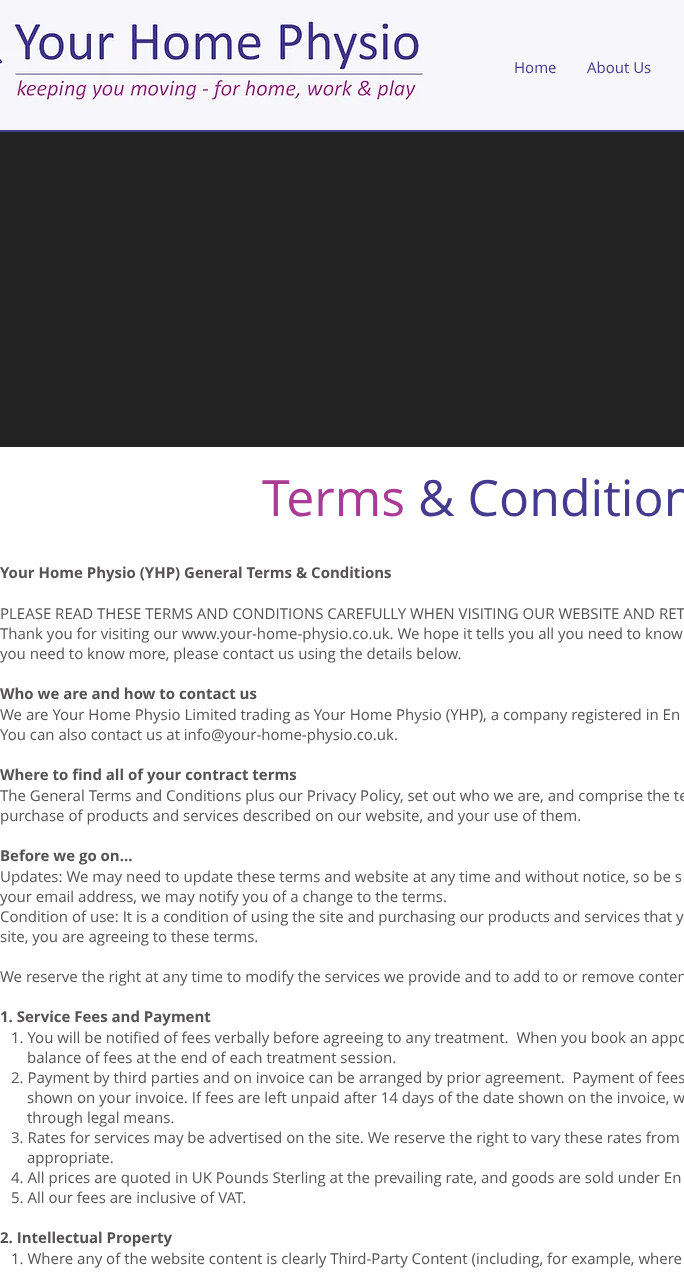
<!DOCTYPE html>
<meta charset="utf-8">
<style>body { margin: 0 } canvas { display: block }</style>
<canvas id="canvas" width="684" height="1274"></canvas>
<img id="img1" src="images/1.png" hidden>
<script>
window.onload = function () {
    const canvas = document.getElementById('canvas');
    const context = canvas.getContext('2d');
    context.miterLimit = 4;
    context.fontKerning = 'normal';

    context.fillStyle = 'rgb(255, 255, 255)';
    context.fillRect(0, 0, 684, 1274);
    context.fillStyle = 'rgb(247, 246, 250)';
    context.fillRect(0, 0, 684, 130);
    context.fillStyle = 'rgb(68, 59, 143)';
    context.fillRect(0, 130, 684, 2);
    context.drawImage(document.getElementById('img1'), 0, 17, 425, 89);
    context.fillStyle = 'rgb(36, 35, 35)';
    context.fillRect(0, 132, 684, 315);
    context.font = '15px Open Sans';
    context.fillStyle = 'rgb(68, 59, 143)';
    context.fillText('Home', 514, 73);
    context.fillText('About Us', 587, 73);
    context.font = '50px Open Sans';
    context.fillStyle = 'rgb(169, 59, 149)';
    context.fillText('Terms', 262, 516);
    context.fillStyle = 'rgb(68, 59, 143)';
    context.fillText('& Condition', 418, 516);
    context.font = 'bold 15px Open Sans';
    context.fillStyle = 'rgb(85, 83, 83)';
    context.fillText('Your Home Physio (YHP) General Terms & Conditions', 0, 578);
    context.font = '15px Open Sans';
    context.fillText('PLEASE READ THESE TERMS AND CONDITIONS CAREFULLY WHEN VISITING OUR WEBSITE AND RET', 0, 619);
    context.fillText('Thank you for visiting our www.your-home-physio.co.uk. We hope it tells you all you need to know', 0, 639);
    context.fillText('you need to know more, please contact us using the details below.', 0, 659);
    context.font = 'bold 15px Open Sans';
    context.fillText('Who we are and how to contact us', 0, 699);
    context.font = '15px Open Sans';
    context.fillText('We are Your Home Physio Limited trading as Your Home Physio (YHP), a company registered in En', 0, 720);
    context.fillText('You can also contact us at info@your-home-physio.co.uk.', 0, 740);
    context.font = 'bold 15px Open Sans';
    context.fillText('Where to find all of your contract terms', 0, 780);
    context.font = '15px Open Sans';
    context.fillText('The General Terms and Conditions plus our Privacy Policy, set out who we are, and comprise the te', 0, 801);
    context.fillText('purchase of products and services described on our website, and your use of them.', 0, 821);
    context.font = 'bold 15px Open Sans';
    context.fillText('Before we go on...', 0, 861);
    context.font = '15px Open Sans';
    context.fillText('Updates: We may need to update these terms and website at any time and without notice, so be s', 0, 882);
    context.fillText('your email address, we may notify you of a change to the terms.', 0, 902);
    context.fillText('Condition of use: It is a condition of using the site and purchasing our products and services that y', 0, 922);
    context.fillText('site, you are agreeing to these terms.', 0, 942);
    context.fillText('We reserve the right at any time to modify the services we provide and to add to or remove conten', 0, 982);
    context.font = 'bold 15px Open Sans';
    context.fillText('1. Service Fees and Payment', 0, 1022);
    context.font = '15px Open Sans';
    context.fillText('1. You will be notified of fees verbally before agreeing to any treatment.  When you book an appo', 11, 1043);
    context.fillText('balance of fees at the end of each treatment session.', 27, 1063);
    context.fillText('2. Payment by third parties and on invoice can be arranged by prior agreement.  Payment of fees', 11, 1083);
    context.fillText('shown on your invoice. If fees are left unpaid after 14 days of the date shown on the invoice, w', 27, 1103);
    context.fillText('through legal means.', 27, 1123);
    context.fillText('3. Rates for services may be advertised on the site. We reserve the right to vary these rates from', 11, 1143);
    context.fillText('appropriate.', 27, 1163);
    context.fillText('4. All prices are quoted in UK Pounds Sterling at the prevailing rate, and goods are sold under En', 11, 1183);
    context.fillText('5. All our fees are inclusive of VAT.', 11, 1203);
    context.font = 'bold 15px Open Sans';
    context.fillText('2. Intellectual Property', 0, 1243);
    context.font = '15px Open Sans';
    context.fillText('1. Where any of the website content is clearly Third-Party Content (including, for example, where', 11, 1264);
};
</script>
